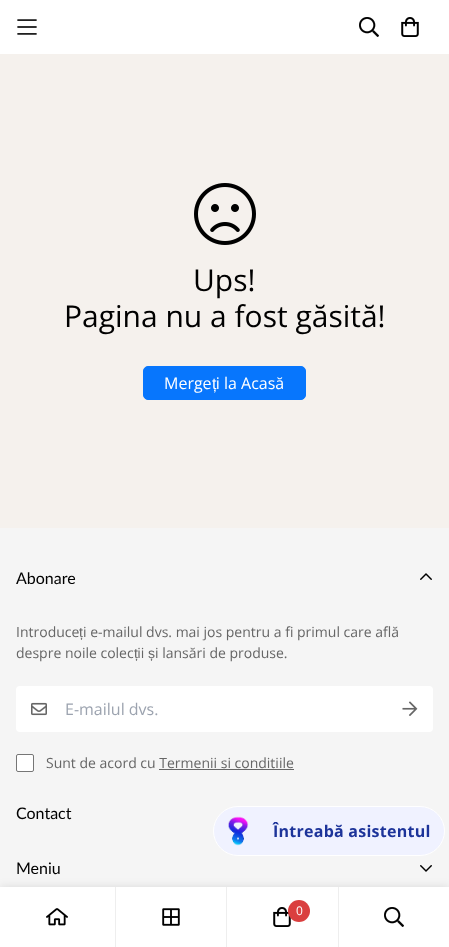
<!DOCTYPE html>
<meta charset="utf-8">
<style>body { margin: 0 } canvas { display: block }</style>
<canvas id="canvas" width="449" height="947"></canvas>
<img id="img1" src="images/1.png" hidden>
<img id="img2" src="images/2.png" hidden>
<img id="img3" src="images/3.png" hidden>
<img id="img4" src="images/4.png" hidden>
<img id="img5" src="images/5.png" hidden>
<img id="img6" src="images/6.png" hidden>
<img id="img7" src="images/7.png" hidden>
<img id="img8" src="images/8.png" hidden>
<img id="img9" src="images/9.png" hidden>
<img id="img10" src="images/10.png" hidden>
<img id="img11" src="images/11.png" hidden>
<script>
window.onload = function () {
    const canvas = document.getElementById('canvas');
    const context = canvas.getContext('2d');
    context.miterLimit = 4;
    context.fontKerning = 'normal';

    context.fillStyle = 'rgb(245, 245, 245)';
    context.fillRect(0, 0, 449, 947);
    context.fillStyle = 'rgb(255, 255, 255)';
    context.fillRect(0, 0, 449, 54);
    context.drawImage(document.getElementById('img1'), 17, 19, 20, 16);
    context.drawImage(document.getElementById('img2'), 359, 17, 20, 20);
    context.drawImage(document.getElementById('img3'), 401, 17, 18, 20);
    context.fillStyle = 'rgb(245, 241, 237)';
    context.fillRect(0, 54, 449, 474);
    context.drawImage(document.getElementById('img4'), 194, 183, 62, 62);
    context.fillStyle = 'rgb(7, 118, 253)';
    context.beginPath();
    context.roundRect(143.5, 366.5, 162, 33, 4.5);
    context.fill();
    context.strokeStyle = 'rgb(7, 118, 253)';
    context.stroke();
    context.drawImage(document.getElementById('img5'), 420, 573, 12, 7);
    context.fillStyle = 'rgb(255, 255, 255)';
    context.beginPath();
    context.roundRect(16, 686, 417, 46, 4);
    context.fill();
    context.drawImage(document.getElementById('img6'), 31, 702, 16, 14);
    context.drawImage(document.getElementById('img7'), 402, 701, 16, 15);
    context.beginPath();
    context.roundRect(16.5, 754.5, 17, 17, 1.5);
    context.fill();
    context.strokeStyle = 'rgb(118, 118, 118)';
    context.stroke();
    context.fillStyle = 'rgb(102, 102, 102)';
    context.fillRect(159, 769, 135, 1);
    context.drawImage(document.getElementById('img8'), 420, 865, 12, 7);
    context.fillStyle = 'rgb(240, 242, 255)';
    context.beginPath();
    context.roundRect(213.5, 806.5, 231, 49, 24.5);
    context.fill();
    context.strokeStyle = 'rgb(255, 255, 255)';
    context.stroke();
    context.drawImage(document.getElementById('img9'), 228, 816, 21, 30);
    context.fillStyle = 'rgba(0, 0, 0, 0.11)';
    context.filter = 'blur(5px)';
    context.beginPath();
    context.rect(0, 887, 449, 60);
    context.fill();
    context.filter = 'none';
    context.fillStyle = 'rgb(255, 255, 255)';
    context.fillRect(0, 887, 449, 60);
    context.fillStyle = 'rgb(238, 238, 238)';
    context.fillRect(115, 887, 1, 60);
    context.drawImage(document.getElementById('img10'), 46, 908, 22, 18);
    context.fillRect(226, 887, 1, 60);
    context.drawImage(document.getElementById('img11'), 162, 908, 18, 18);
    context.fillRect(338, 887, 1, 60);
    context.drawImage(document.getElementById('img3'), 273, 907, 18, 20);
    context.fillStyle = 'rgb(218, 63, 63)';
    context.beginPath();
    context.arc(299, 911, 11, 0, 2 * Math.PI);
    context.fill();
    context.drawImage(document.getElementById('img2'), 384, 907, 20, 20);
    context.font = '30px Open Sans';
    context.fillStyle = 'rgb(0, 0, 0)';
    context.fillText('Ups!', 193, 291);
    context.fillText('Pagina nu a fost găsită!', 64, 327);
    context.font = '16px Open Sans';
    context.fillStyle = 'rgb(255, 255, 255)';
    context.fillText('Merge i la Acasă', 164, 389);
    context.font = '16px Liberation Sans';
    context.fillText('ț', 212, 389);
    context.font = '16px Lato';
    context.fillStyle = 'rgb(0, 0, 0)';
    context.fillText('Abonare', 16, 584);
    context.font = '14px Open Sans';
    context.fillStyle = 'rgb(102, 102, 102)';
    context.fillText('Introduce i e-mailul dvs. mai jos pentru a fi primul care află', 16, 637);
    context.font = '14px Liberation Sans';
    context.fillText('ț', 79, 637);
    context.font = '14px Open Sans';
    context.fillText('despre noile colec ii', 16, 658);
    context.fillText('i lansări de produse.', 155, 658);
    context.font = '14px Liberation Sans';
    context.fillText('ț', 134, 658);
    context.fillText('ș', 148, 658);
    context.font = '16px Open Sans';
    context.fillStyle = 'rgb(156, 163, 175)';
    context.fillText('E-mailul dvs.', 65, 715);
    context.font = '14px Open Sans';
    context.fillStyle = 'rgb(102, 102, 102)';
    context.fillText('Sunt de acord cu Termenii si conditiile', 46, 768);
    context.font = '16px Lato';
    context.fillStyle = 'rgb(0, 0, 0)';
    context.fillText('Contact', 16, 819);
    context.fillText('Meniu', 16, 874);
    context.letterSpacing = '0.25px';
    context.font = 'bold 16px Open Sans';
    context.fillStyle = 'rgb(29, 52, 154)';
    context.fillText('Întreabă asistentul', 273, 837);
    context.letterSpacing = '0px';
    context.font = '12px Open Sans';
    context.fillStyle = 'rgb(255, 255, 255)';
    context.fillText('0', 296, 915);
};
</script>
